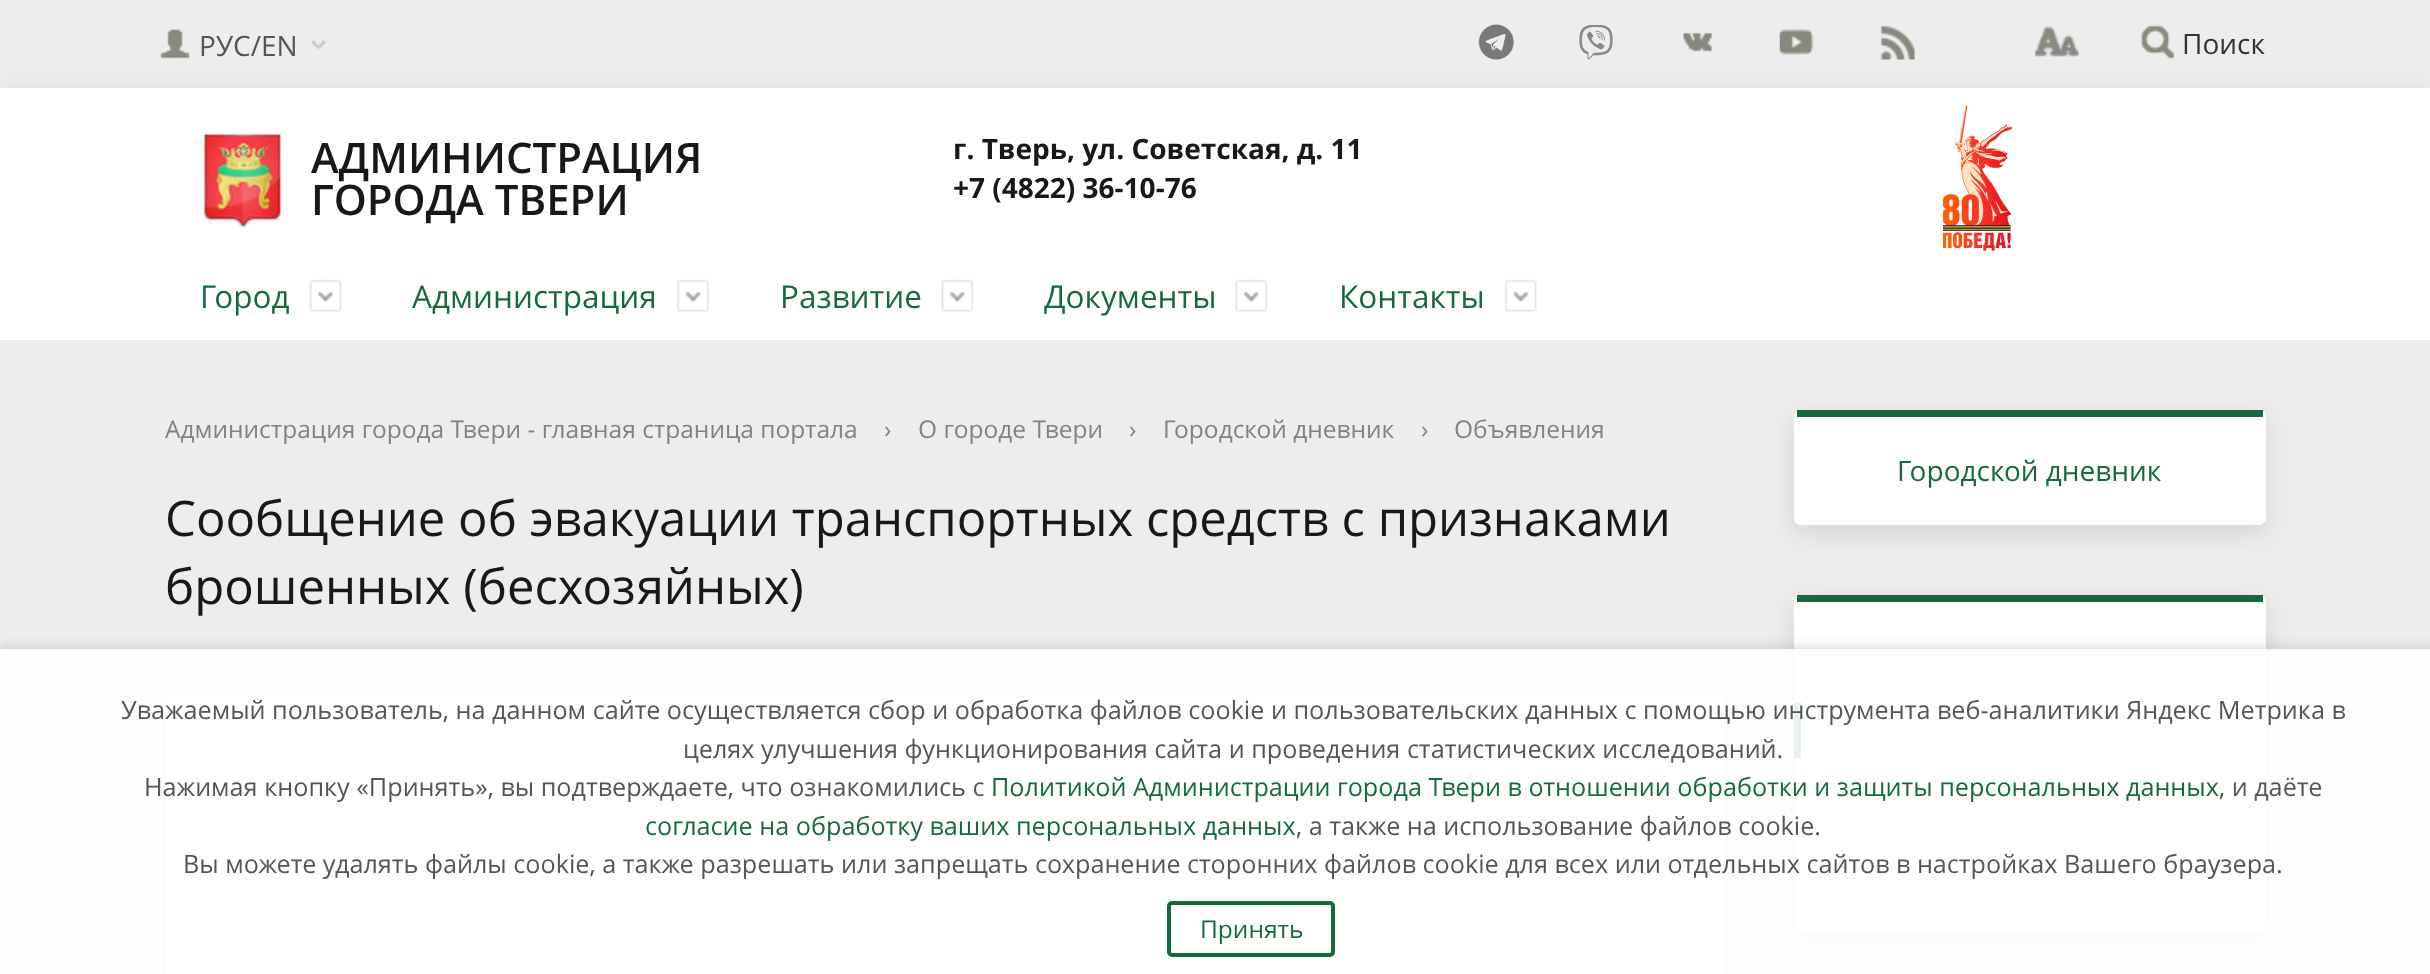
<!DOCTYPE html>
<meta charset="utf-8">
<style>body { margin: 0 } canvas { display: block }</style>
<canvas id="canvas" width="2430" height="974"></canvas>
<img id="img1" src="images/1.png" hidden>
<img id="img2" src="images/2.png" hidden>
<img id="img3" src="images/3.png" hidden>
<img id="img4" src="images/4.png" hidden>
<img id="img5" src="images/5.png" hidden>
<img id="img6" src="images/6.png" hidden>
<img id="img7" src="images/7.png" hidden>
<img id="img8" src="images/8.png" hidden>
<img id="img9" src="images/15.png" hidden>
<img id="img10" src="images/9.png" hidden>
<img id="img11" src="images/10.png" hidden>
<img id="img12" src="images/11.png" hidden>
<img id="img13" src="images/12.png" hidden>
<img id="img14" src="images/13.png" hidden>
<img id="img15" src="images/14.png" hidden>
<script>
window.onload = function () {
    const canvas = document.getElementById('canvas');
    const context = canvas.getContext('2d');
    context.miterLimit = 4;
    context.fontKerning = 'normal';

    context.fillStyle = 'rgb(237, 237, 237)';
    context.fillRect(0, 0, 2430, 974);
    context.fillStyle = 'rgba(0, 0, 0, 0.1)';
    context.filter = 'blur(13px)';
    context.beginPath();
    context.rect(0, 96, 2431, 165);
    context.fill();
    context.filter = 'none';
    context.drawImage(document.getElementById('img1'), 160, 29, 30, 30);
    context.fillStyle = 'rgb(204, 204, 204)';
    context.beginPath();
    context.moveTo(317.5, 46.5);
    context.lineTo(323.5, 40);
    context.lineTo(326, 42.5);
    context.lineTo(319.5, 49);
    context.closePath();
    context.fill();
    context.beginPath();
    context.moveTo(311, 42.5);
    context.lineTo(313.5, 40);
    context.lineTo(319.5, 46.5);
    context.lineTo(317.5, 49);
    context.closePath();
    context.fill();
    context.drawImage(document.getElementById('img2'), 2035, 26, 44, 31);
    context.drawImage(document.getElementById('img3'), 2140, 24, 35, 36);
    context.drawImage(document.getElementById('img4'), 1478, 24, 36, 36);
    context.drawImage(document.getElementById('img5'), 1579, 25, 34, 35);
    context.drawImage(document.getElementById('img6'), 1683, 32, 29, 20);
    context.drawImage(document.getElementById('img7'), 1779, 29, 35, 26);
    context.drawImage(document.getElementById('img8'), 1880, 25, 35, 35);
    context.fillStyle = 'rgba(0, 0, 0, 0.1)';
    context.filter = 'blur(13px)';
    context.beginPath();
    context.roundRect(166, 698, 1558, 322, 7);
    context.fill();
    context.filter = 'none';
    context.fillStyle = 'rgb(255, 255, 255)';
    context.beginPath();
    context.roundRect(166, 690, 1558, 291, 7);
    context.fill();
    context.drawImage(document.getElementById('img9'), 1466, 769, 10, 16);
    context.fillStyle = 'rgba(0, 0, 0, 0.1)';
    context.filter = 'blur(13px)';
    context.beginPath();
    context.roundRect(1794, 604, 472, 336, 7);
    context.fill();
    context.filter = 'none';
    context.fillStyle = 'rgb(255, 255, 255)';
    context.beginPath();
    context.roundRect(1794, 595, 472, 336, 7);
    context.fill();
    context.fillStyle = 'rgb(22, 104, 63)';
    context.fillRect(1794, 702, 7, 56);
    context.save();
    context.beginPath();
    context.moveTo(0, 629);
    context.lineTo(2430, 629);
    context.lineTo(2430, 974);
    context.lineTo(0, 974);
    context.closePath();
    context.moveTo(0, 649);
    context.lineTo(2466, 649);
    context.lineTo(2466, 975);
    context.lineTo(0, 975);
    context.closePath();
    context.clip('evenodd');
    context.fillStyle = 'rgba(0, 0, 0, 0.16)';
    context.filter = 'blur(6px)';
    context.beginPath();
    context.rect(-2, 648, 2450, 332);
    context.fill();
    context.filter = 'none';
    context.restore();
    context.fillStyle = 'rgba(255, 255, 255, 0.9)';
    context.fillRect(0, 649, 2430, 325);
    context.beginPath();
    context.roundRect(1169, 903, 164, 52, 3);
    context.strokeStyle = 'rgb(22, 104, 63)';
    context.lineWidth = 4;
    context.stroke();
    context.fillStyle = 'rgb(255, 255, 255)';
    context.fillRect(0, 88, 2430, 252);
    context.drawImage(document.getElementById('img10'), 202, 133, 80, 95);
    context.drawImage(document.getElementById('img11'), 1943, 105, 70, 146);
    context.drawImage(document.getElementById('img12'), 309, 279, 33, 33);
    context.drawImage(document.getElementById('img13'), 677, 279, 32, 33);
    context.drawImage(document.getElementById('img14'), 941, 279, 33, 33);
    context.drawImage(document.getElementById('img14'), 1235, 279, 33, 33);
    context.drawImage(document.getElementById('img15'), 1504, 279, 33, 33);
    context.fillStyle = 'rgba(0, 0, 0, 0.1)';
    context.filter = 'blur(13px)';
    context.beginPath();
    context.roundRect(1794, 418, 472, 116, 7);
    context.fill();
    context.filter = 'none';
    context.fillStyle = 'rgb(255, 255, 255)';
    context.beginPath();
    context.roundRect(1794, 410, 472, 115, 7);
    context.fill();
    context.fillStyle = 'rgb(22, 104, 63)';
    context.fillRect(1797, 410, 466, 7);
    context.fillRect(1797, 595, 466, 7);
    context.font = '28px Open Sans';
    context.fillStyle = 'rgb(85, 85, 85)';
    context.fillText('РУС/EN', 199, 56);
    context.fillStyle = 'rgb(51, 51, 51)';
    context.fillText('Поиск', 2182, 54);
    context.font = '25.2px Open Sans';
    context.fillStyle = 'rgb(85, 85, 85)';
    context.fillText('Уважаемый пользователь, на данном сайте осуществляется сбор и обработка файлов cookie и пользовательских данных с помощью инструмента веб-аналитики Яндекс Метрика в', 121, 719);
    context.fillText('целях улучшения функционирования сайта и проведения статистических исследований.', 683, 758);
    context.fillText('Нажимая кнопку «Принять», вы подтверждаете, что ознакомились с', 144, 796);
    context.fillStyle = 'rgb(22, 104, 63)';
    context.fillText('Политикой Администрации города Твери в отношении обработки и защиты персональных данных', 991, 796);
    context.fillStyle = 'rgb(85, 85, 85)';
    context.fillText(', и даёте', 2219, 796);
    context.fillStyle = 'rgb(22, 104, 63)';
    context.fillText('согласие на обработку ваших персональных данных', 645, 835);
    context.fillStyle = 'rgb(85, 85, 85)';
    context.fillText(', а также на использование файлов cookie.', 1296, 835);
    context.fillText('Вы можете удалять файлы cookie, а также разрешать или запрещать сохранение сторонних файлов cookie для всех или отдельных сайтов в настройках Вашего браузера.', 183, 873);
    context.font = '24.5px Open Sans';
    context.fillStyle = 'rgb(22, 104, 63)';
    context.fillText('Принять', 1200, 938);
    context.font = '600 42px Open Sans';
    context.fillStyle = 'rgb(24, 24, 24)';
    context.fillText('АДМИНИСТРАЦИЯ', 311, 173);
    context.fillText('ГОРОДА ТВЕРИ', 311, 215);
    context.font = 'bold 28px Open Sans';
    context.fillText('г. Тверь, ул. Советская, д. 11', 953, 159);
    context.fillText('+7 (4822) 36-10-76', 953, 198);
    context.font = '31.5px Open Sans';
    context.fillStyle = 'rgb(22, 104, 63)';
    context.fillText('Город', 200, 308);
    context.fillText('Администрация', 412, 308);
    context.fillText('Развитие', 780, 308);
    context.fillText('Документы', 1044, 308);
    context.fillText('Контакты', 1339, 308);
    context.font = '24.5px Open Sans';
    context.fillStyle = 'rgb(130, 130, 130)';
    context.fillText('Администрация города Твери - главная страница портала', 165, 438);
    context.fillText('›', 884, 438);
    context.fillText('О городе Твери', 918, 438);
    context.fillText('›', 1129, 438);
    context.fillText('Городской дневник', 1163, 438);
    context.fillText('›', 1421, 438);
    context.fillText('Объявления', 1454, 438);
    context.font = '49px Open Sans';
    context.fillStyle = 'rgb(24, 24, 24)';
    context.fillText('Сообщение об эвакуации транспортных средств с признаками', 165, 536);
    context.fillText('брошенных (бесхозяйных)', 165, 604);
    context.font = '28px Open Sans';
    context.fillStyle = 'rgb(22, 104, 63)';
    context.fillText('Городской дневник', 1897, 481);
};
</script>
